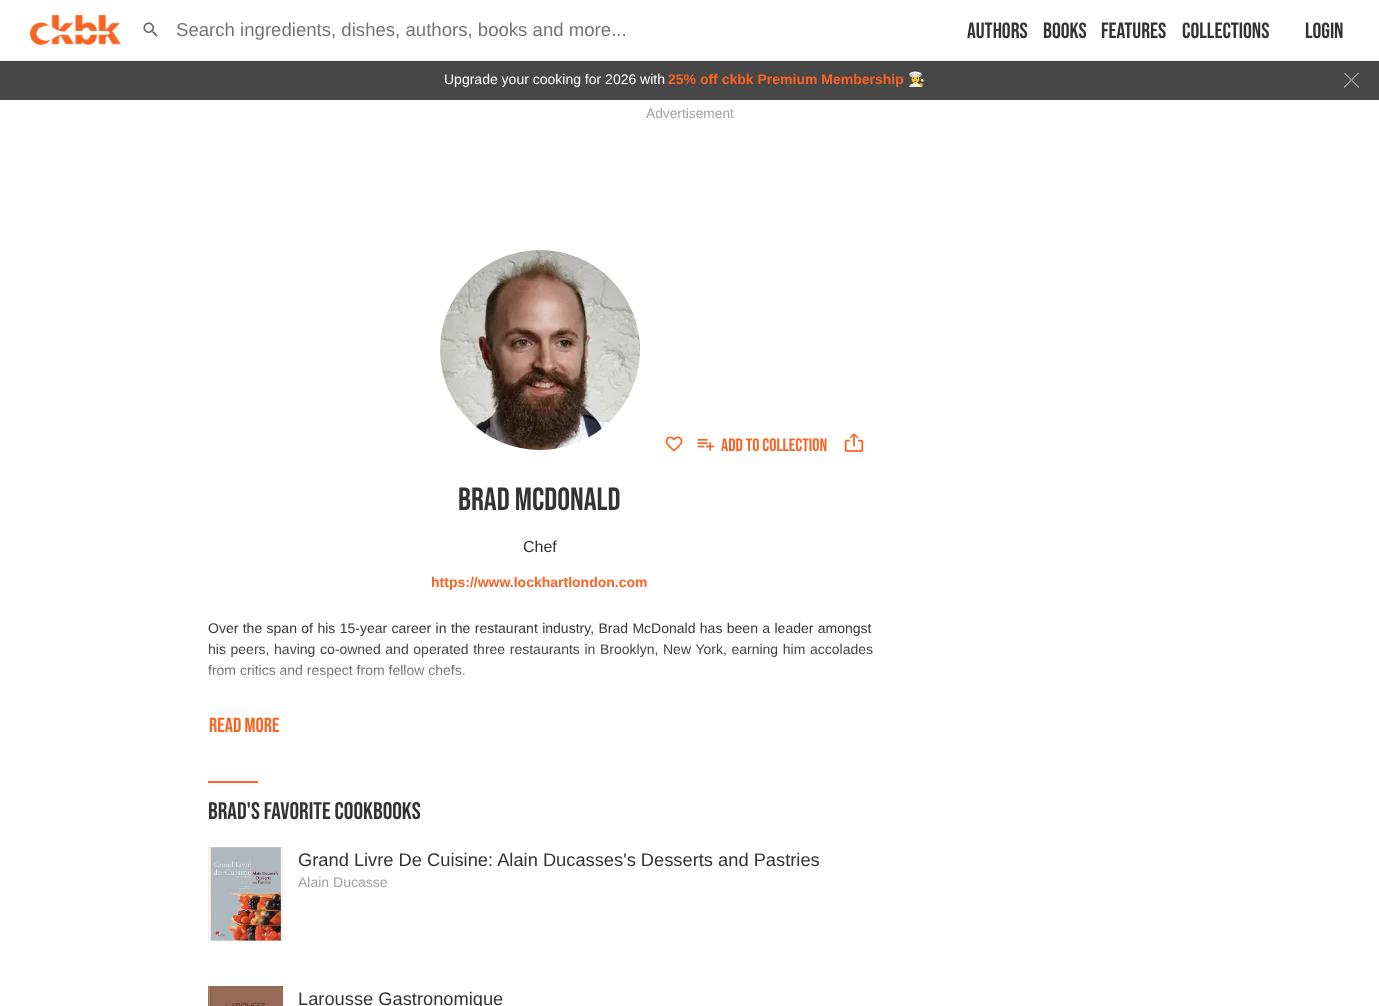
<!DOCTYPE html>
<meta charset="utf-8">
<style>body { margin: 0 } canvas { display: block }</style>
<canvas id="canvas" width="1379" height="1006"></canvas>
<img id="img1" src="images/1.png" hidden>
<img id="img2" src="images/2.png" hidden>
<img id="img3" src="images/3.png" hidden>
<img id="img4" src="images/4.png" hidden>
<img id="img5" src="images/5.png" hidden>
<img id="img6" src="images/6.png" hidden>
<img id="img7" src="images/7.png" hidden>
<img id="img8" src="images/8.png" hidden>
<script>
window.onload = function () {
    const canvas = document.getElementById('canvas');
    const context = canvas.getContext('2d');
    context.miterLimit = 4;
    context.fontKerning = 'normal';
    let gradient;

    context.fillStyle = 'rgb(255, 255, 255)';
    context.fillRect(0, 0, 1379, 1006);
    context.fillStyle = 'rgb(240, 240, 240)';
    context.fillRect(0, 60, 1379, 1);
    context.drawImage(document.getElementById('img1'), 30, 15, 91, 30);
    context.drawImage(document.getElementById('img2'), 143, 22, 15, 15);
    context.fillStyle = 'rgb(71, 71, 71)';
    context.fillRect(0, 61, 1379, 39);
    gradient = context.createLinearGradient(1344, 88, 1359, 73);
    gradient.addColorStop(0, 'rgb(71, 71, 71)');
    gradient.addColorStop(0.48, 'rgb(71, 71, 71)');
    gradient.addColorStop(0.48, 'rgb(149, 149, 149)');
    gradient.addColorStop(0.54, 'rgb(149, 149, 149)');
    gradient.addColorStop(0.54, 'rgb(71, 71, 71)');
    gradient.addColorStop(1, 'rgb(71, 71, 71)');
    context.fillStyle = gradient;
    context.fillRect(1344, 73, 15, 15);
    gradient = context.createLinearGradient(1359, 88, 1344, 73);
    gradient.addColorStop(0, 'rgba(0, 0, 0, 0)');
    gradient.addColorStop(0.48, 'rgba(149, 149, 149, 0)');
    gradient.addColorStop(0.48, 'rgb(149, 149, 149)');
    gradient.addColorStop(0.54, 'rgb(149, 149, 149)');
    gradient.addColorStop(0.54, 'rgba(149, 149, 149, 0)');
    gradient.addColorStop(1, 'rgba(0, 0, 0, 0)');
    context.fillStyle = gradient;
    context.fillRect(1344, 73, 15, 15);
    context.drawImage(document.getElementById('img3'), 440, 250, 200, 200);
    context.drawImage(document.getElementById('img4'), 665, 436, 18, 16);
    context.drawImage(document.getElementById('img5'), 697, 439, 18, 12);
    context.drawImage(document.getElementById('img6'), 844, 433, 20, 19);
    context.fillStyle = 'rgb(250, 100, 34)';
    context.fillRect(208, 781, 50, 2);
    context.drawImage(document.getElementById('img7'), 208, 847, 75, 94);
    context.drawImage(document.getElementById('img8'), 208, 986, 75, 20);
    context.font = '18.6px Liberation Sans';
    context.fillStyle = 'rgb(117, 117, 117)';
    context.fillText('Search ingredients, dishes, authors, books and more...', 176, 36);
    context.font = '22px Bebas Neue';
    context.fillStyle = 'rgb(51, 51, 51)';
    context.fillText('Authors', 967, 38);
    context.fillText('Books', 1043, 38);
    context.fillText('Features', 1101, 38);
    context.fillText('Collections', 1182, 38);
    context.fillText('Login', 1305, 38);
    context.font = '14px Liberation Sans';
    context.fillStyle = 'rgb(255, 255, 255)';
    context.fillText('Upgrade your cooking for 2026 with', 444, 84);
    context.font = 'bold 14px Liberation Sans';
    context.fillStyle = 'rgb(250, 100, 34)';
    context.fillText('25% off ckbk Premium Membership', 668, 84);
    context.font = '14px Noto Color Emoji';
    context.fillStyle = 'rgb(255, 255, 255)';
    context.fillText('👩‍🍳', 908, 84);
    context.font = '13.75px Liberation Sans';
    context.fillStyle = 'rgb(161, 161, 161)';
    context.fillText('Advertisement', 646, 118);
    context.font = '18px Bebas Neue';
    context.fillStyle = 'rgb(250, 100, 34)';
    context.fillText('ADD TO COLLECTION', 721, 451);
    context.font = '32px Bebas Neue';
    context.fillStyle = 'rgb(51, 51, 51)';
    context.fillText('BRAD MCDONALD', 458, 510);
    context.font = '16px Liberation Sans';
    context.fillText('Chef', 523, 552);
    context.font = 'bold 14px Liberation Sans';
    context.fillStyle = 'rgb(250, 100, 34)';
    context.fillText('https://www.lockhartlondon.com', 431, 587);
    context.wordSpacing = '0.5px';
    context.font = '14px Liberation Sans';
    context.fillStyle = 'rgb(51, 51, 51)';
    context.fillText('Over the span of his 15-year career in the restaurant industry, Brad McDonald has been a leader amongst', 208, 633);
    context.wordSpacing = '0.75px';
    context.fillText('his peers, having co-owned and operated three restaurants in Brooklyn, New York, earning him accolades', 208, 654);
    context.wordSpacing = '0px';
    context.fillText('from critics and respect from fellow chefs.', 208, 675);
    gradient = context.createLinearGradient(540, 618, 540, 708);
    gradient.addColorStop(0, 'rgba(255, 255, 255, 0)');
    gradient.addColorStop(0.47, 'rgba(255, 255, 255, 0.1)');
    gradient.addColorStop(0.93, 'rgb(255, 255, 255)');
    context.fillStyle = gradient;
    context.fillRect(208, 627, 663, 51);
    context.font = '20.5px Bebas Neue';
    context.fillStyle = 'rgb(250, 100, 34)';
    context.fillText('READ MORE', 209, 732);
    context.font = '24px Bebas Neue';
    context.fillStyle = 'rgb(51, 51, 51)';
    context.fillText('BRAD\'S FAVORITE COOKBOOKS', 208, 819);
    context.font = '18.3px Liberation Sans';
    context.fillText('Grand Livre De Cuisine: Alain Ducasses\'s Desserts and Pastries', 298, 866);
    context.font = '14px Liberation Sans';
    context.fillStyle = 'rgb(161, 161, 161)';
    context.fillText('Alain Ducasse', 298, 887);
    context.font = '18.3px Liberation Sans';
    context.fillStyle = 'rgb(51, 51, 51)';
    context.fillText('Larousse Gastronomique', 298, 1005);
};
</script>
